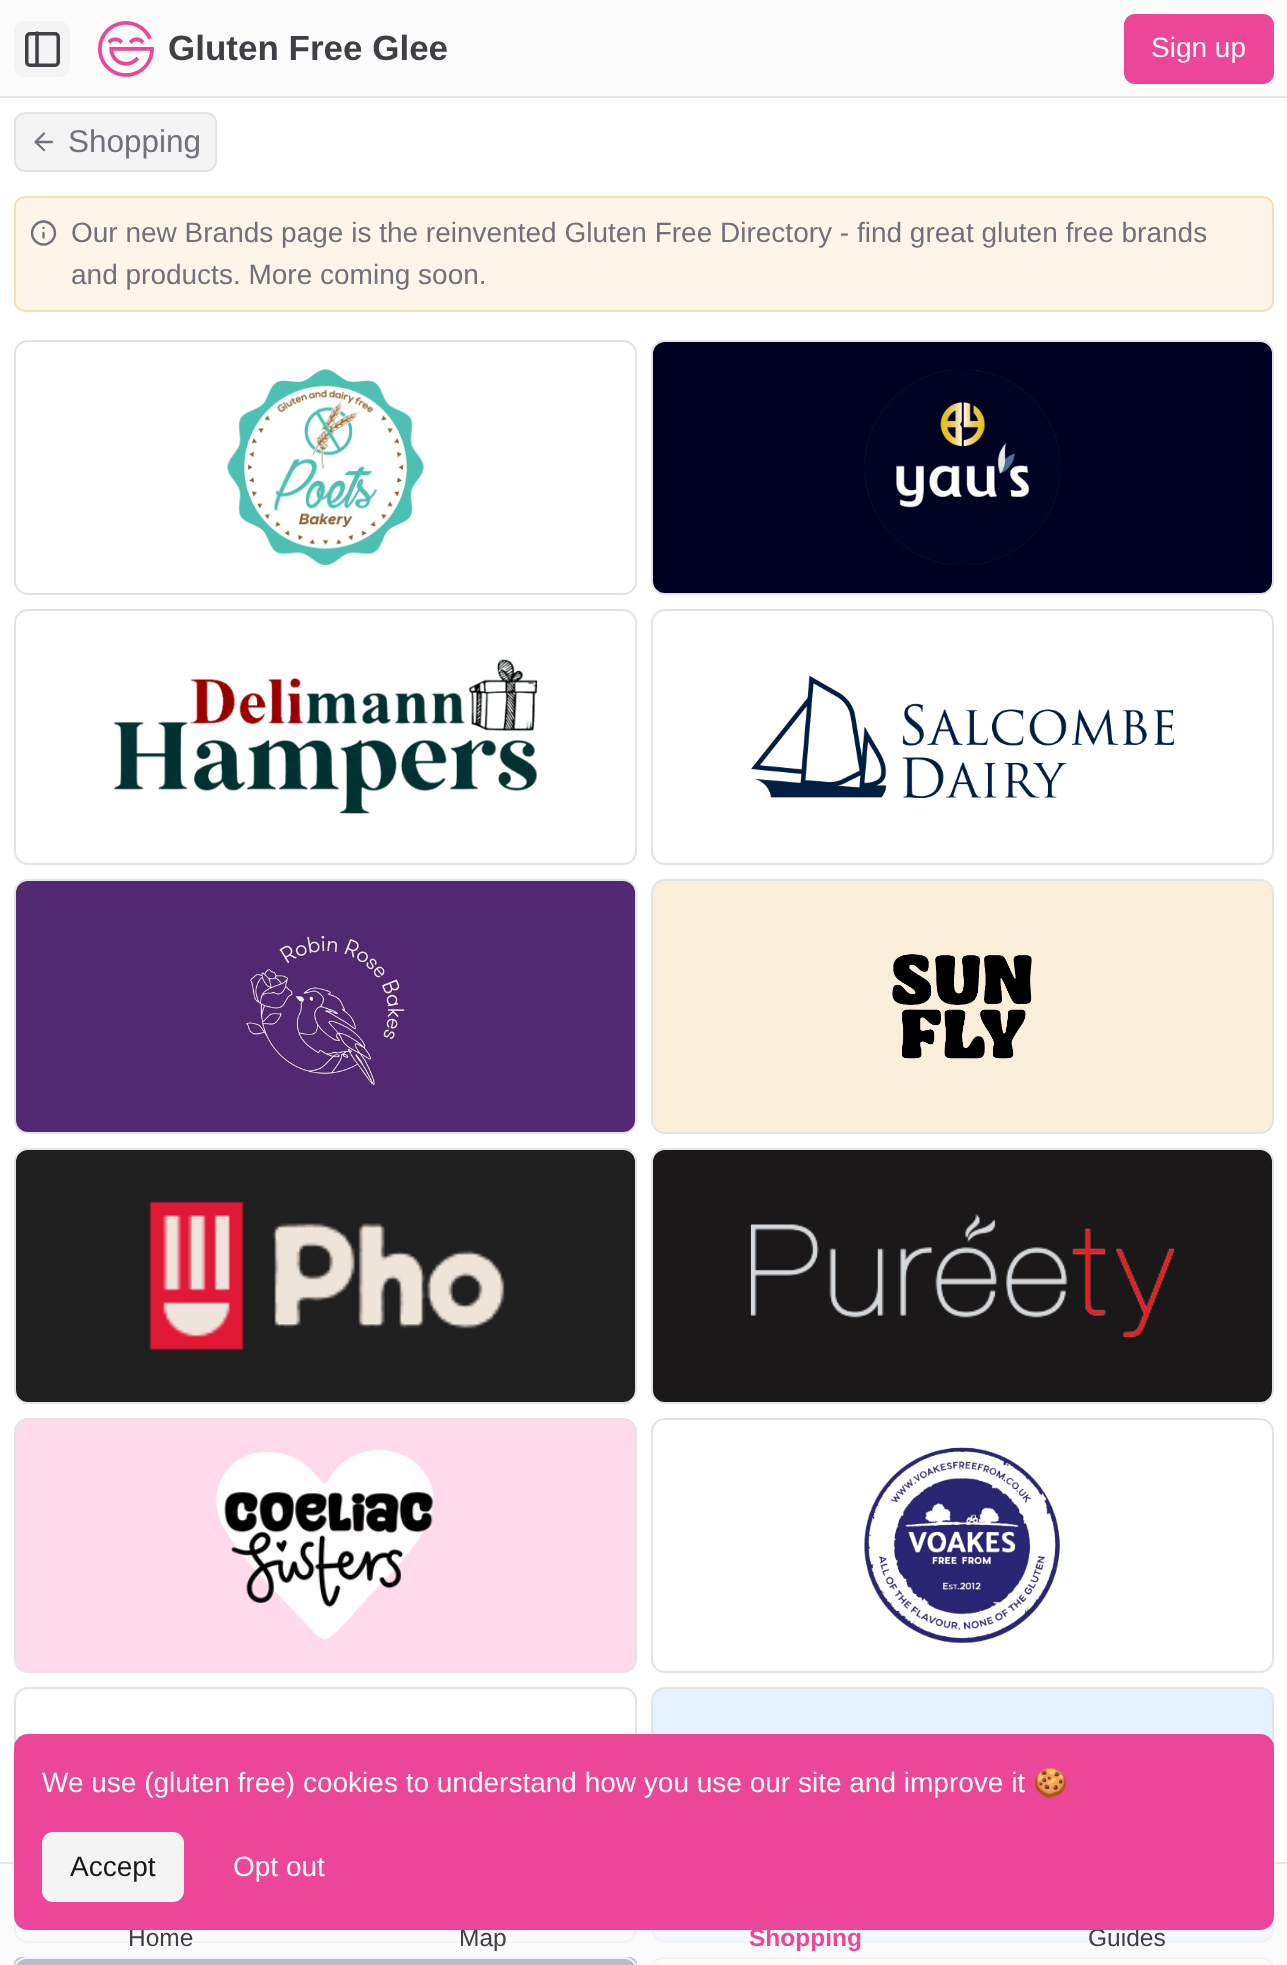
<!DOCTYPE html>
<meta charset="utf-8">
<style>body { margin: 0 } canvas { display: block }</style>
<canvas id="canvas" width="1287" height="1965"></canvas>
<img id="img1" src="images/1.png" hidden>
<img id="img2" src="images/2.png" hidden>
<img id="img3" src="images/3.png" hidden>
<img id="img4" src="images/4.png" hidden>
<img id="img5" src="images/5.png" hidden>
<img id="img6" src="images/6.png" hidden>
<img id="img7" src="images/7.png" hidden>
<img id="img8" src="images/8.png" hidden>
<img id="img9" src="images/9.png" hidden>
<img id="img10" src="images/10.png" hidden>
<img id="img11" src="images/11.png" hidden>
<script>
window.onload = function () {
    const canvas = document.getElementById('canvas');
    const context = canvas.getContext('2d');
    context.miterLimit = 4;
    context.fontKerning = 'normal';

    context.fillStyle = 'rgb(255, 255, 255)';
    context.fillRect(0, 0, 1287, 1965);
    context.fillStyle = 'rgb(252, 252, 252)';
    context.fillRect(0, 0, 1287, 96);
    context.fillStyle = 'rgb(229, 231, 235)';
    context.fillRect(0, 96, 1287, 2);
    context.fillStyle = 'rgb(244, 244, 245)';
    context.beginPath();
    context.roundRect(14, 21, 56, 56, 11);
    context.fill();
    context.beginPath();
    context.roundRect(26.75, 33.75, 31.5, 31.5, 3.25);
    context.strokeStyle = 'rgb(63, 63, 70)';
    context.lineWidth = 3.5;
    context.stroke();
    context.beginPath();
    context.moveTo(37, 33);
    context.lineTo(37, 65);
    context.lineCap = 'round';
    context.lineJoin = 'round';
    context.stroke();
    context.drawImage(document.getElementById('img1'), 98, 21, 56, 56);
    context.fillStyle = 'rgb(236, 70, 153)';
    context.beginPath();
    context.roundRect(1124, 14, 150, 70, 11);
    context.fill();
    context.fillStyle = 'rgb(244, 244, 245)';
    context.beginPath();
    context.roundRect(15, 113, 201, 58, 10);
    context.fill();
    context.strokeStyle = 'rgb(228, 228, 231)';
    context.lineWidth = 2;
    context.lineJoin = 'miter';
    context.stroke();
    context.beginPath();
    context.moveTo(44, 150);
    context.lineTo(35.5, 142);
    context.lineTo(44, 133.5);
    context.moveTo(52, 142);
    context.lineTo(35.5, 142);
    context.strokeStyle = 'rgb(113, 113, 122)';
    context.lineWidth = 2.3;
    context.lineJoin = 'round';
    context.stroke();
    context.fillStyle = 'rgb(254, 245, 234)';
    context.beginPath();
    context.roundRect(15, 197, 1258, 114, 10);
    context.fill();
    context.strokeStyle = 'rgb(251, 221, 183)';
    context.lineWidth = 2;
    context.lineJoin = 'miter';
    context.stroke();
    context.beginPath();
    context.arc(43.5, 233, 11.5, 0, 2 * Math.PI);
    context.strokeStyle = 'rgb(113, 113, 122)';
    context.lineWidth = 2.3;
    context.stroke();
    context.beginPath();
    context.moveTo(43.5, 237.5);
    context.lineTo(43.5, 233);
    context.moveTo(43.5, 228);
    context.lineTo(43.5, 228);
    context.lineJoin = 'round';
    context.stroke();
    context.beginPath();
    context.roundRect(15, 341, 621, 253, 13);
    context.strokeStyle = 'rgb(228, 228, 231)';
    context.lineWidth = 2;
    context.lineJoin = 'miter';
    context.stroke();
    context.drawImage(document.getElementById('img2'), 227, 369, 197, 197);
    context.fillStyle = 'rgb(0, 0, 34)';
    context.beginPath();
    context.roundRect(652, 341, 621, 253, 13);
    context.fill();
    context.stroke();
    context.drawImage(document.getElementById('img3'), 864, 369, 197, 196);
    context.beginPath();
    context.roundRect(15, 610, 621, 254, 13);
    context.stroke();
    context.drawImage(document.getElementById('img4'), 113, 659, 425, 155);
    context.beginPath();
    context.roundRect(652, 610, 621, 254, 13);
    context.stroke();
    context.drawImage(document.getElementById('img5'), 751, 675, 424, 123);
    context.fillStyle = 'rgb(81, 40, 114)';
    context.beginPath();
    context.roundRect(15, 880, 621, 253, 13);
    context.fill();
    context.stroke();
    context.drawImage(document.getElementById('img6'), 245, 933, 160, 156);
    context.fillStyle = 'rgb(249, 238, 218)';
    context.beginPath();
    context.roundRect(652, 880, 621, 253, 13);
    context.fill();
    context.stroke();
    context.drawImage(document.getElementById('img7'), 892, 953, 140, 106);
    context.fillStyle = 'rgb(32, 31, 31)';
    context.beginPath();
    context.roundRect(15, 1149, 621, 254, 13);
    context.fill();
    context.stroke();
    context.drawImage(document.getElementById('img8'), 149, 1201, 356, 150);
    context.fillStyle = 'rgb(26, 24, 24)';
    context.beginPath();
    context.roundRect(652, 1149, 621, 254, 13);
    context.fill();
    context.stroke();
    context.drawImage(document.getElementById('img9'), 750, 1214, 425, 123);
    context.fillStyle = 'rgb(255, 218, 235)';
    context.beginPath();
    context.roundRect(15, 1419, 621, 253, 13);
    context.fill();
    context.stroke();
    context.drawImage(document.getElementById('img10'), 215, 1449, 219, 191);
    context.beginPath();
    context.roundRect(652, 1419, 621, 253, 13);
    context.stroke();
    context.drawImage(document.getElementById('img11'), 864, 1447, 196, 197);
    context.beginPath();
    context.roundRect(15, 1688, 621, 254, 13);
    context.stroke();
    context.fillStyle = 'rgb(230, 241, 255)';
    context.beginPath();
    context.roundRect(652, 1688, 621, 254, 13);
    context.fill();
    context.stroke();
    context.fillStyle = 'rgb(23, 46, 118)';
    context.beginPath();
    context.roundRect(14, 1957, 623, 8, [14, 14, 0, 0]);
    context.fill();
    context.beginPath();
    context.roundRect(15, 1958, 621, 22, 13);
    context.stroke();
    context.fillStyle = 'rgb(254, 255, 241)';
    context.beginPath();
    context.roundRect(651, 1957, 623, 8, [14, 14, 0, 0]);
    context.fill();
    context.beginPath();
    context.roundRect(652, 1958, 621, 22, 13);
    context.stroke();
    context.fillStyle = 'rgb(229, 231, 235)';
    context.fillRect(0, 1862, 1287, 2);
    context.fillStyle = 'rgba(250, 250, 250, 0.7)';
    context.fillRect(0, 1864, 322, 101);
    context.fillRect(322, 1930, 322, 35);
    context.fillRect(644, 1930, 322, 35);
    context.fillRect(966, 1864, 321, 101);
    context.font = 'bold 35px Liberation Sans';
    context.fillStyle = 'rgb(63, 63, 70)';
    context.fillText('Gluten Free Glee', 168, 60);
    context.font = '28px Liberation Sans';
    context.fillStyle = 'rgb(250, 250, 250)';
    context.fillText('Sign up', 1151, 57);
    context.font = '31.5px Liberation Sans';
    context.fillStyle = 'rgb(113, 113, 122)';
    context.fillText('Shopping', 68, 152);
    context.font = '28px Liberation Sans';
    context.fillText('Our new Brands page is the reinvented Gluten Free Directory - find great gluten free brands', 71, 242);
    context.fillText('and products. More coming soon.', 71, 284);
    context.font = '24.5px Liberation Sans';
    context.fillStyle = 'rgb(63, 63, 70)';
    context.fillText('Home', 128, 1946);
    context.fillText('Map', 459, 1946);
    context.font = 'bold 24.5px Liberation Sans';
    context.fillStyle = 'rgb(236, 70, 153)';
    context.fillText('Shopping', 749, 1946);
    context.font = '24.5px Liberation Sans';
    context.fillStyle = 'rgb(63, 63, 70)';
    context.fillText('Guides', 1088, 1946);
    context.fillStyle = 'rgb(236, 70, 153)';
    context.beginPath();
    context.roundRect(14, 1734, 1260, 196, 14);
    context.fill();
    context.font = '28px Liberation Sans';
    context.fillStyle = 'rgb(250, 250, 250)';
    context.fillText('We use (gluten free) cookies to understand how you use our site and improve it', 42, 1792);
    context.font = '28px Noto Color Emoji';
    context.fillText('🍪', 1033, 1792);
    context.fillStyle = 'rgb(244, 244, 245)';
    context.beginPath();
    context.roundRect(42, 1832, 142, 70, 11);
    context.fill();
    context.font = '28px Liberation Sans';
    context.fillStyle = 'rgb(24, 24, 27)';
    context.fillText('Accept', 70, 1876);
    context.fillStyle = 'rgb(250, 250, 250)';
    context.fillText('Opt out', 233, 1876);
};
</script>
